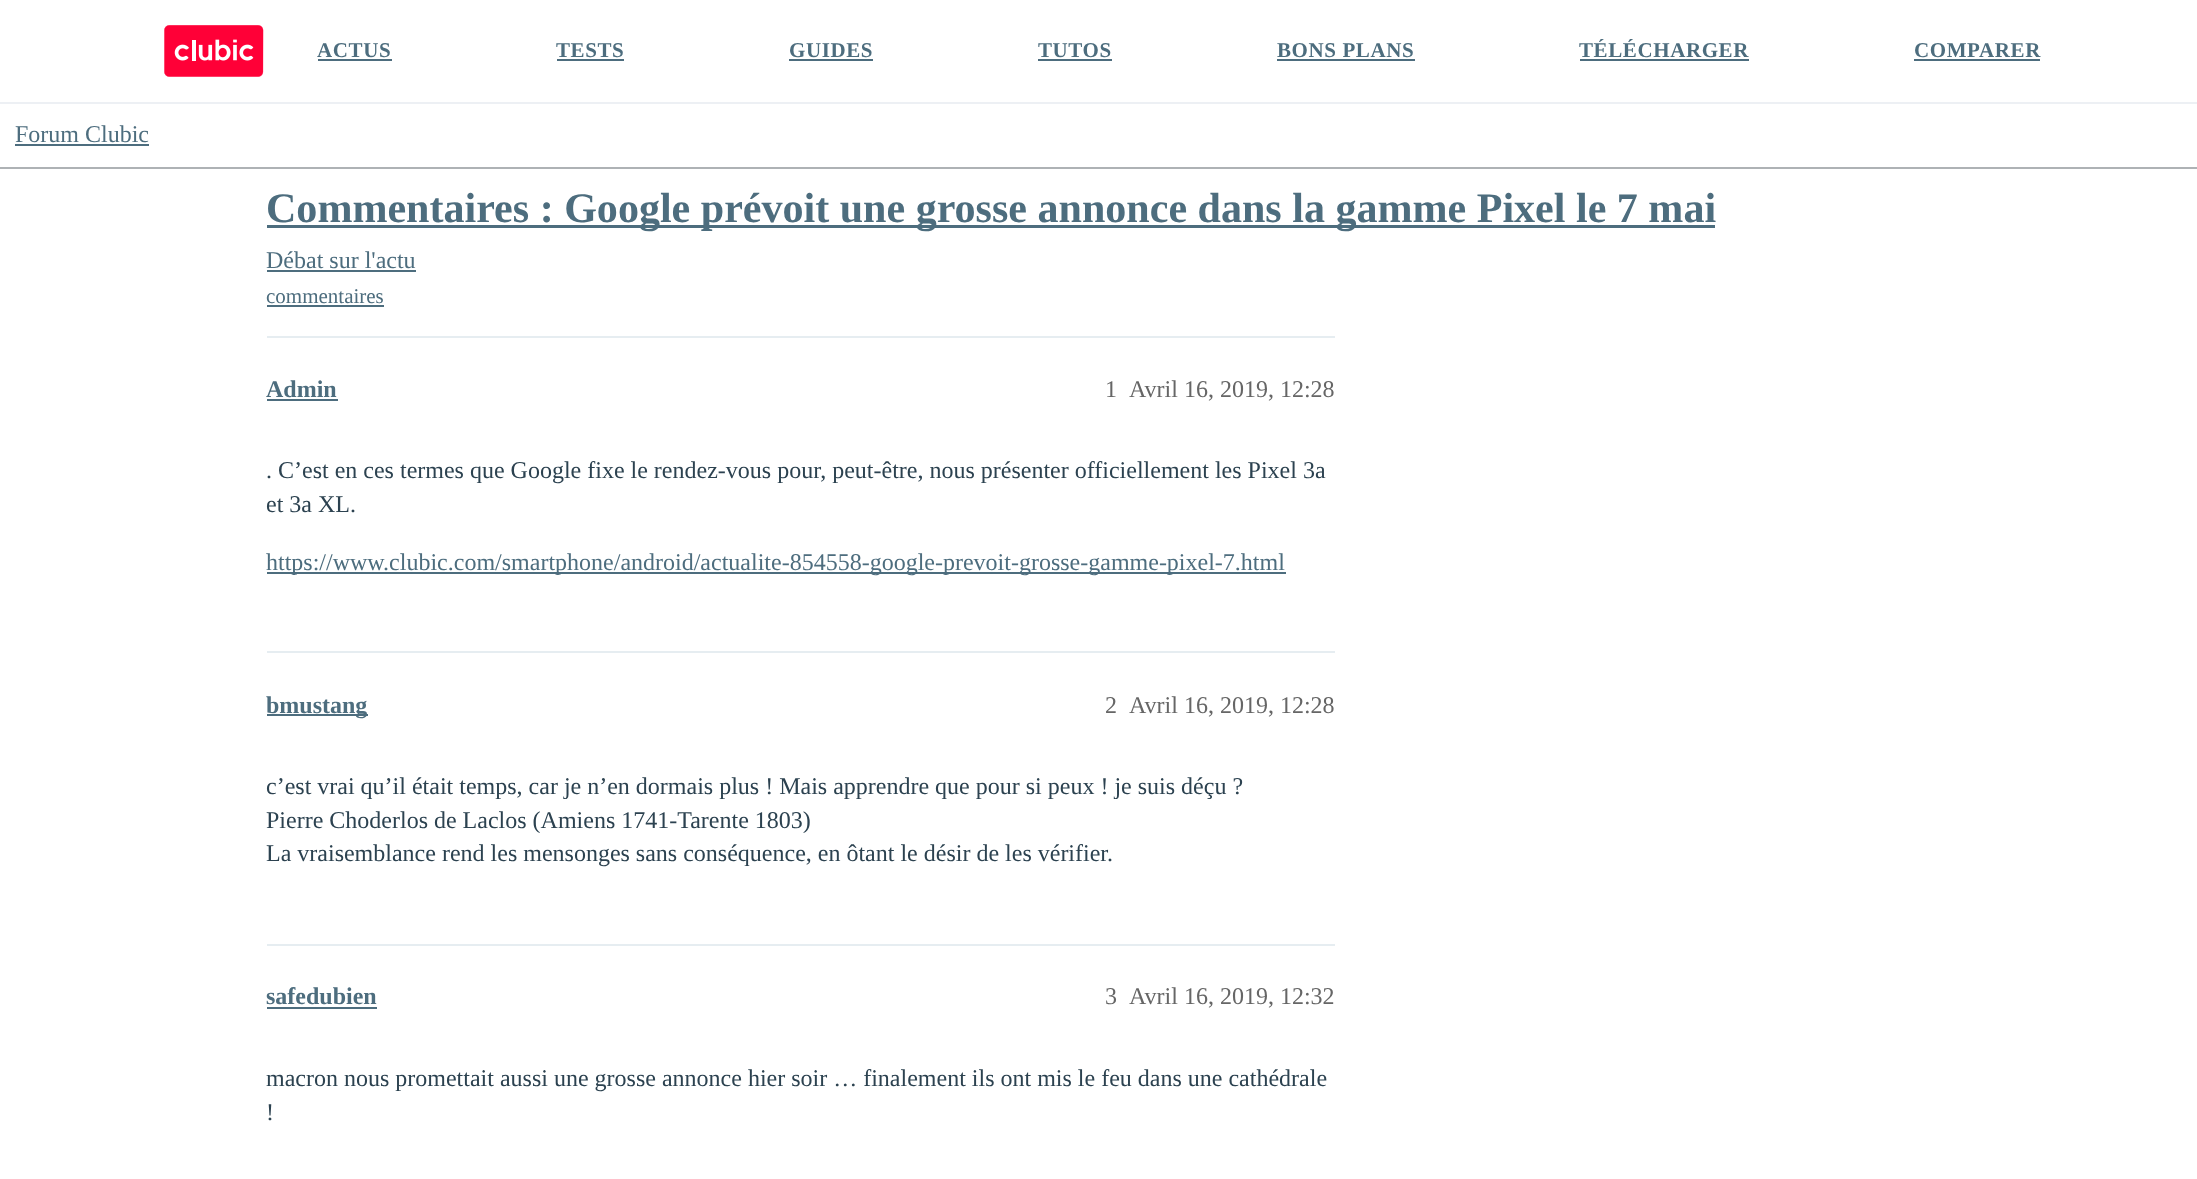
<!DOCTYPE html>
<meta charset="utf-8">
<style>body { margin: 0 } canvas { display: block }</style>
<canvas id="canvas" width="2197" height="1179"></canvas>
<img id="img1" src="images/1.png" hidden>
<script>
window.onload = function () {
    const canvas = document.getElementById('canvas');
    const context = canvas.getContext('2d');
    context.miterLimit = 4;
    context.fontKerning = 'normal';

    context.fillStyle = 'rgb(255, 255, 255)';
    context.fillRect(0, 0, 2197, 1179);
    context.fillStyle = 'rgb(237, 240, 244)';
    context.fillRect(0, 102, 2197, 2);
    context.drawImage(document.getElementById('img1'), 164, 25, 100, 52);
    context.fillStyle = 'rgb(77, 109, 126)';
    context.fillRect(318, 59, 74, 2);
    context.fillRect(557, 59, 67, 2);
    context.fillRect(789, 59, 84, 2);
    context.fillRect(1038, 59, 74, 2);
    context.fillRect(1277, 59, 138, 2);
    context.fillRect(1580, 59, 169, 2);
    context.fillRect(1914, 59, 126, 2);
    context.fillStyle = 'rgb(174, 178, 181)';
    context.fillRect(0, 167, 2197, 2);
    context.fillStyle = 'rgb(77, 109, 126)';
    context.fillRect(15, 144, 134, 2);
    context.fillRect(267, 225, 1448, 3);
    context.fillRect(267, 270, 149, 2);
    context.fillRect(267, 305, 117, 2);
    context.fillStyle = 'rgb(230, 237, 241)';
    context.fillRect(267, 336, 1068, 2);
    context.fillStyle = 'rgb(77, 109, 126)';
    context.fillRect(267, 399, 71, 2);
    context.fillRect(267, 572, 1019, 2);
    context.fillStyle = 'rgb(230, 237, 241)';
    context.fillRect(267, 651, 1068, 2);
    context.fillStyle = 'rgb(77, 109, 126)';
    context.fillRect(267, 714, 101, 2);
    context.fillStyle = 'rgb(230, 237, 241)';
    context.fillRect(267, 944, 1068, 2);
    context.fillStyle = 'rgb(77, 109, 126)';
    context.fillRect(267, 1007, 110, 2);
    context.letterSpacing = '0.6px';
    context.font = 'bold 21px Liberation Serif';
    context.fillText('ACTUS', 317, 57);
    context.fillText('TESTS', 556, 57);
    context.fillText('GUIDES', 789, 57);
    context.fillText('TUTOS', 1038, 57);
    context.fillText('BONS PLANS', 1277, 57);
    context.fillText('TÉLÉCHARGER', 1579, 57);
    context.fillText('COMPARER', 1914, 57);
    context.letterSpacing = '0px';
    context.font = '24px Liberation Serif';
    context.fillText('Forum Clubic', 15, 142);
    context.font = 'bold 42.05px Liberation Serif';
    context.fillText('Commentaires : Google prévoit une grosse annonce dans la gamme Pixel le 7 mai', 266, 222);
    context.font = '24px Liberation Serif';
    context.fillText('Débat sur l\'actu', 266, 268);
    context.font = '21px Liberation Serif';
    context.fillText('commentaires', 266, 303);
    context.font = 'bold 24px Liberation Serif';
    context.fillText('Admin', 266, 397);
    context.font = '24px Liberation Serif';
    context.fillStyle = 'rgb(102, 102, 102)';
    context.fillText('1', 1105, 397);
    context.fillText('Avril 16, 2019, 12:28', 1129, 397);
    context.fillStyle = 'rgb(44, 66, 80)';
    context.fillText('. C’est en ces termes que Google fixe le rendez-vous pour, peut-être, nous présenter officiellement les Pixel 3a', 266, 478);
    context.fillText('et 3a XL.', 266, 512);
    context.fillStyle = 'rgb(77, 109, 126)';
    context.fillText('https://www.clubic.com/smartphone/android/actualite-854558-google-prevoit-grosse-gamme-pixel-7.html', 266, 570);
    context.font = 'bold 24px Liberation Serif';
    context.fillText('bmustang', 266, 713);
    context.font = '24px Liberation Serif';
    context.fillStyle = 'rgb(102, 102, 102)';
    context.fillText('2', 1105, 713);
    context.fillText('Avril 16, 2019, 12:28', 1129, 713);
    context.fillStyle = 'rgb(44, 66, 80)';
    context.fillText('c’est vrai qu’il était temps, car je n’en dormais plus ! Mais apprendre que pour si peux ! je suis déçu ?', 266, 794);
    context.fillText('Pierre Choderlos de Laclos (Amiens 1741-Tarente 1803)', 266, 828);
    context.fillText('La vraisemblance rend les mensonges sans conséquence, en ôtant le désir de les vérifier.', 266, 861);
    context.font = 'bold 24px Liberation Serif';
    context.fillStyle = 'rgb(77, 109, 126)';
    context.fillText('safedubien', 266, 1004);
    context.font = '24px Liberation Serif';
    context.fillStyle = 'rgb(102, 102, 102)';
    context.fillText('3', 1105, 1004);
    context.fillText('Avril 16, 2019, 12:32', 1129, 1004);
    context.fillStyle = 'rgb(44, 66, 80)';
    context.fillText('macron nous promettait aussi une grosse annonce hier soir … finalement ils ont mis le feu dans une cathédrale', 266, 1086);
    context.fillText('!', 266, 1120);
};
</script>
